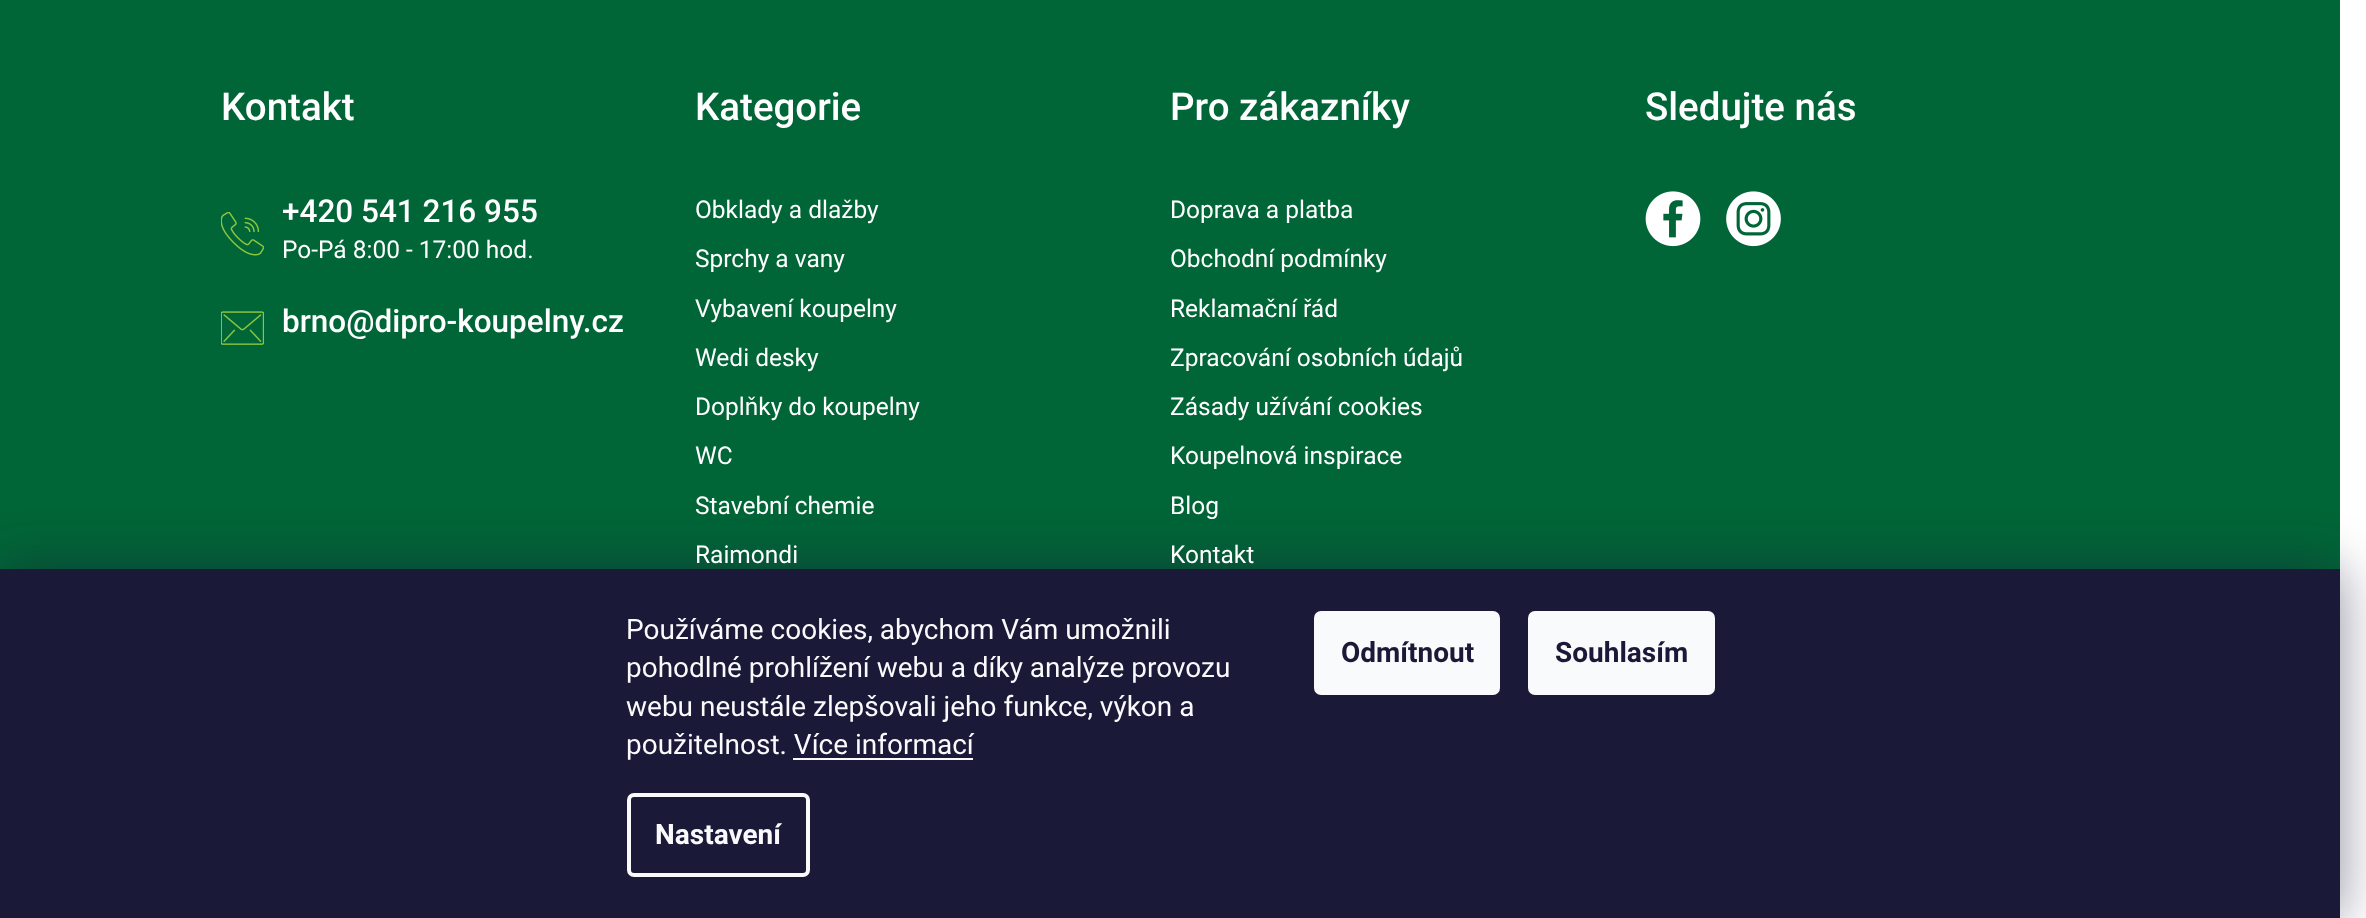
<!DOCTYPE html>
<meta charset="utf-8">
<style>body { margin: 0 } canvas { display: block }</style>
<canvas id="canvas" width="2366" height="918"></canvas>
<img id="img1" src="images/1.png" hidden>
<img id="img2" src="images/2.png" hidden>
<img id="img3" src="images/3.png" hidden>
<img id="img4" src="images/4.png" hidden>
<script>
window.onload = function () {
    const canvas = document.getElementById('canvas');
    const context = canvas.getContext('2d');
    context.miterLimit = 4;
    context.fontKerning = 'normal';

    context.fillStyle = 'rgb(255, 255, 255)';
    context.fillRect(0, 0, 2366, 918);
    context.fillStyle = 'rgb(0, 101, 55)';
    context.fillRect(0, 0, 2340, 569);
    context.drawImage(document.getElementById('img1'), 221, 212, 43, 44);
    context.drawImage(document.getElementById('img2'), 221, 311, 43, 34);
    context.drawImage(document.getElementById('img3'), 1645, 191, 56, 56);
    context.drawImage(document.getElementById('img4'), 1726, 191, 55, 56);
    context.fillStyle = 'rgba(27, 25, 57, 0.5)';
    context.filter = 'blur(26px)';
    context.beginPath();
    context.rect(0, 569, 2340, 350);
    context.fill();
    context.filter = 'none';
    context.fillStyle = 'rgb(26, 25, 55)';
    context.fillRect(0, 569, 2340, 349);
    context.fillStyle = 'rgb(248, 250, 251)';
    context.fillRect(793, 758, 180, 2);
    context.beginPath();
    context.roundRect(629, 795, 179, 80, 5);
    context.strokeStyle = 'rgb(248, 250, 251)';
    context.lineWidth = 4;
    context.stroke();
    context.beginPath();
    context.roundRect(1314, 611, 186, 84, 7);
    context.fill();
    context.beginPath();
    context.roundRect(1528, 611, 187, 84, 7);
    context.fill();
    context.font = '500 38.5px Roboto';
    context.fillStyle = 'rgb(255, 255, 255)';
    context.fillText('Kontakt', 221, 120);
    context.font = '500 31.5px Roboto';
    context.fillText('+420 541 216 955', 282, 222);
    context.font = '24.5px Roboto';
    context.fillText('Po-Pá 8:00 - 17:00 hod.', 282, 258);
    context.font = '500 31.5px Roboto';
    context.fillText('brno@dipro-koupelny.cz', 282, 332);
    context.font = '500 38.5px Roboto';
    context.fillText('Kategorie', 695, 120);
    context.font = '24.5px Roboto';
    context.fillText('Obklady a dlažby', 695, 218);
    context.fillText('Sprchy a vany', 695, 267);
    context.fillText('Vybavení koupelny', 695, 317);
    context.fillText('Wedi desky', 695, 366);
    context.fillText('Doplňky do koupelny', 695, 415);
    context.fillText('WC', 695, 464);
    context.fillText('Stavební chemie', 695, 514);
    context.fillText('Raimondi', 695, 563);
    context.font = '500 38.5px Roboto';
    context.fillText('Pro zákazníky', 1170, 120);
    context.font = '24.5px Roboto';
    context.fillText('Doprava a platba', 1170, 218);
    context.fillText('Obchodní podmínky', 1170, 267);
    context.fillText('Reklamační řád', 1170, 317);
    context.fillText('Zpracování osobních údajů', 1170, 366);
    context.fillText('Zásady užívání cookies', 1170, 415);
    context.fillText('Koupelnová inspirace', 1170, 464);
    context.fillText('Blog', 1170, 514);
    context.fillText('Kontakt', 1170, 563);
    context.font = '500 38.5px Roboto';
    context.fillText('Sledujte nás', 1645, 120);
    context.font = '28px Roboto';
    context.fillStyle = 'rgb(248, 250, 251)';
    context.fillText('Používáme cookies, abychom Vám umožnili', 626, 639);
    context.fillText('pohodlné prohlížení webu a díky analýze provozu', 626, 677);
    context.fillText('webu neustále zlepšovali jeho funkce, výkon a', 626, 716);
    context.fillText('použitelnost. Více informací', 626, 754);
    context.font = 'bold 28px Roboto';
    context.fillText('Nastavení', 655, 844);
    context.fillStyle = 'rgb(26, 25, 55)';
    context.fillText('Odmítnout', 1341, 662);
    context.fillText('Souhlasím', 1555, 662);
};
</script>
